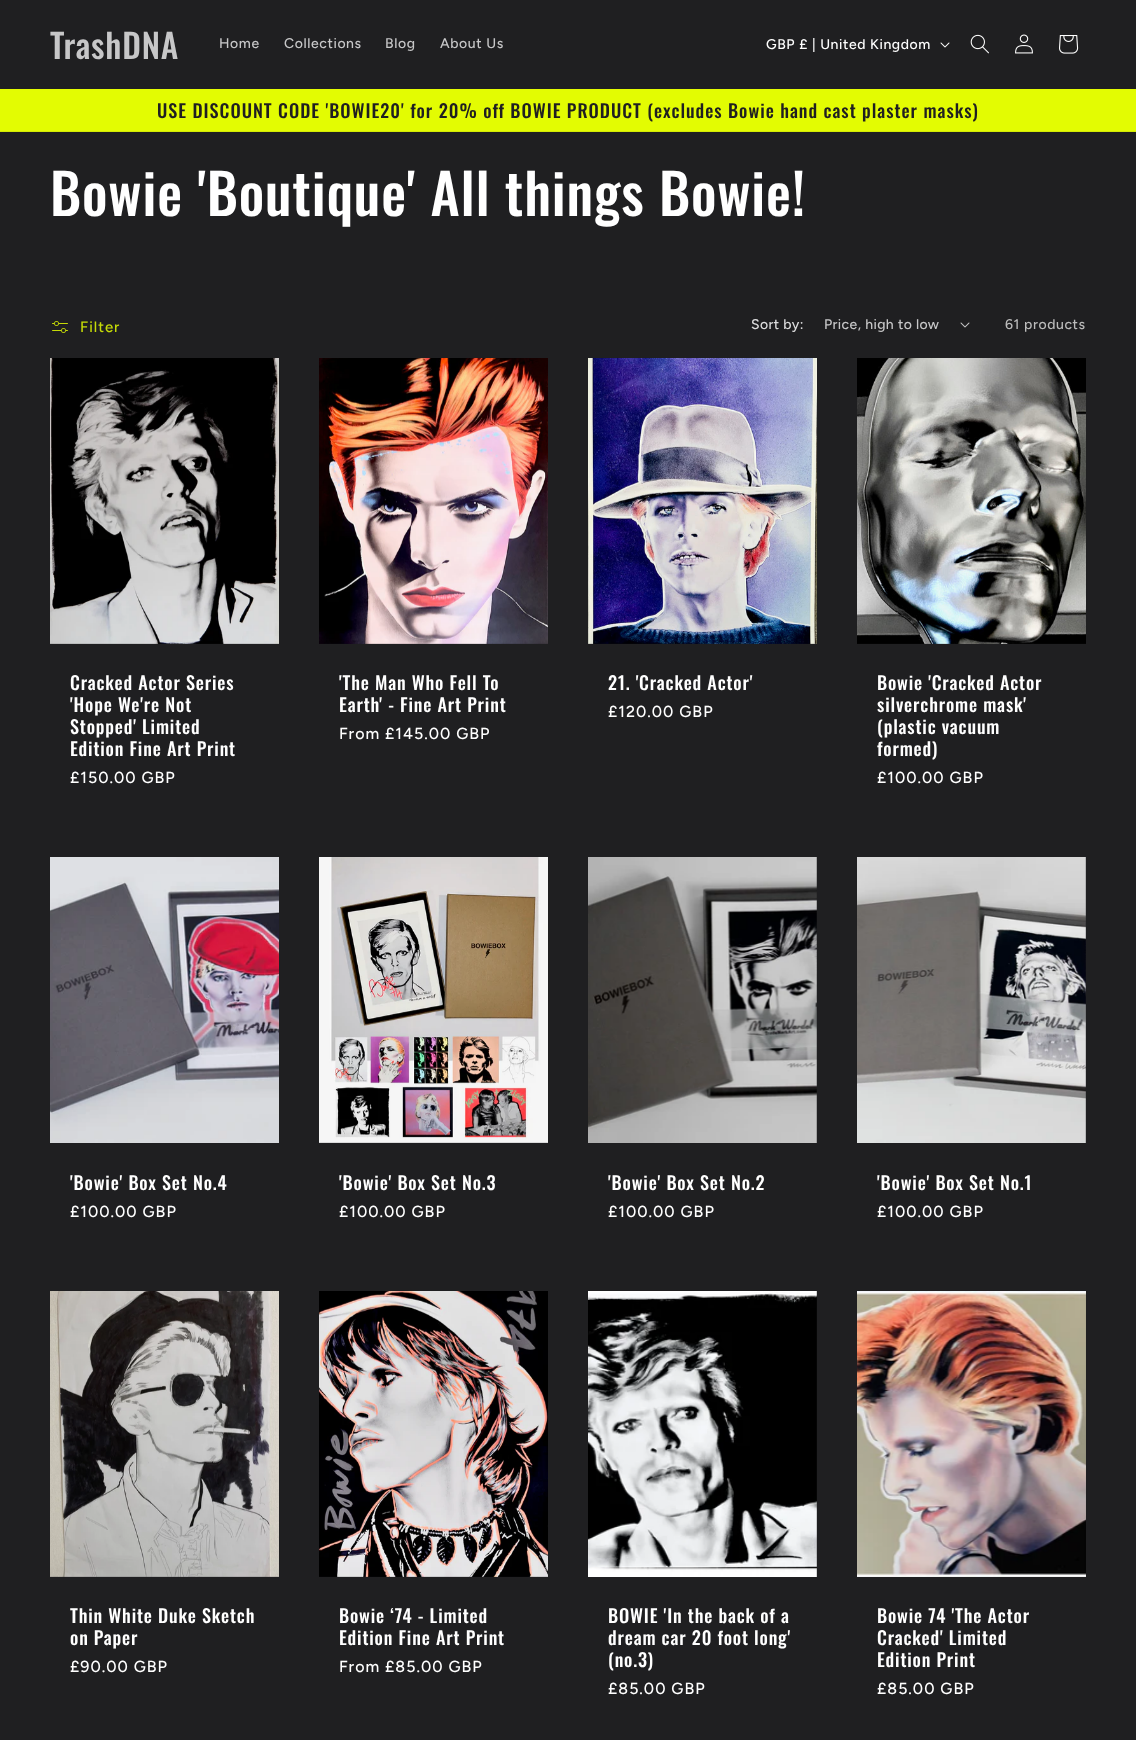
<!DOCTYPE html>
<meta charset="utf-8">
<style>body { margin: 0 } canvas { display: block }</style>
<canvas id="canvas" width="1136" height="1740"></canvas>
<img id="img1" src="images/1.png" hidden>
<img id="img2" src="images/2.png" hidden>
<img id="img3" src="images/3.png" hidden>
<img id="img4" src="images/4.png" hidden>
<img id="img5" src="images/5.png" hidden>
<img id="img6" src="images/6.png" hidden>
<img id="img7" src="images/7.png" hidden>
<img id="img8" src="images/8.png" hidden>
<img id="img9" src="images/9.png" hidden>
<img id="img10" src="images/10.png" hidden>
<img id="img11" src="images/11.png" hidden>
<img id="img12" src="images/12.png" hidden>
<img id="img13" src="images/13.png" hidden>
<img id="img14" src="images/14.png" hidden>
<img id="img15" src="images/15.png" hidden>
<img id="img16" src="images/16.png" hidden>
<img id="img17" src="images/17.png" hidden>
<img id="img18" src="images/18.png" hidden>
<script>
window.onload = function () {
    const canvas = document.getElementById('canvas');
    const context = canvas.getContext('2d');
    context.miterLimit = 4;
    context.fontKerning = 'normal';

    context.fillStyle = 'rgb(31, 31, 33)';
    context.fillRect(0, 0, 1136, 1740);
    context.drawImage(document.getElementById('img1'), 940, 42, 10, 6);
    context.drawImage(document.getElementById('img2'), 970, 34, 19, 20);
    context.drawImage(document.getElementById('img3'), 1015, 34, 18, 20);
    context.drawImage(document.getElementById('img4'), 1059, 35, 20, 19);
    context.fillStyle = 'rgb(227, 252, 2)';
    context.fillRect(0, 89, 1136, 42);
    context.fillStyle = 'rgb(211, 234, 4)';
    context.fillRect(0, 131, 1136, 1);
    context.drawImage(document.getElementById('img5'), 52, 321, 16, 12);
    context.drawImage(document.getElementById('img6'), 960, 322, 10, 6);
    context.drawImage(document.getElementById('img7'), 50, 358, 229, 286);
    context.drawImage(document.getElementById('img8'), 319, 358, 229, 286);
    context.drawImage(document.getElementById('img9'), 588, 358, 229, 286);
    context.drawImage(document.getElementById('img10'), 857, 358, 229, 286);
    context.drawImage(document.getElementById('img11'), 50, 857, 229, 286);
    context.drawImage(document.getElementById('img12'), 319, 857, 229, 286);
    context.drawImage(document.getElementById('img13'), 588, 857, 229, 286);
    context.drawImage(document.getElementById('img14'), 857, 857, 229, 286);
    context.drawImage(document.getElementById('img15'), 50, 1291, 229, 286);
    context.drawImage(document.getElementById('img16'), 319, 1291, 229, 286);
    context.drawImage(document.getElementById('img17'), 588, 1291, 229, 286);
    context.drawImage(document.getElementById('img18'), 857, 1291, 229, 286);
    context.letterSpacing = '0.85px';
    context.font = '500 33.5px Oswald';
    context.fillStyle = 'rgb(199, 199, 200)';
    context.fillText('TrashDNA', 50, 59);
    context.letterSpacing = '0.6px';
    context.font = '500 14px Figtree';
    context.fillText('Home', 219, 48);
    context.fillText('Collections', 284, 48);
    context.fillText('Blog', 385, 48);
    context.fillText('About Us', 440, 48);
    context.fillStyle = 'rgb(255, 255, 255)';
    context.fillText('GBP £ | United Kingdom', 766, 49);
    context.letterSpacing = '1px';
    context.font = '500 18.2px Oswald';
    context.fillStyle = 'rgb(31, 31, 33)';
    context.fillText('USE DISCOUNT CODE \'BOWIE20\' for 20% off BOWIE PRODUCT (excludes Bowie hand cast plaster masks)', 157, 118);
    context.letterSpacing = '0.85px';
    context.font = '500 56px Oswald';
    context.fillStyle = 'rgb(255, 255, 255)';
    context.fillText('Bowie \'Boutique\' All things Bowie!', 50, 216);
    context.letterSpacing = '1px';
    context.font = '500 15px Figtree';
    context.fillStyle = 'rgb(198, 219, 7)';
    context.fillText('Filter', 80, 332);
    context.letterSpacing = '0.4px';
    context.font = '500 14px Figtree';
    context.fillStyle = 'rgb(221, 221, 222)';
    context.fillText('Sort by:', 751, 329);
    context.fillStyle = 'rgb(199, 199, 200)';
    context.fillText('Price, high to low', 824, 329);
    context.letterSpacing = '0.6px';
    context.fillStyle = 'rgb(188, 188, 188)';
    context.fillText('61 products', 1005, 329);
    context.letterSpacing = '0.85px';
    context.font = '500 18.2px Oswald';
    context.fillStyle = 'rgb(255, 255, 255)';
    context.fillText('Cracked Actor Series', 70, 690);
    context.fillText('\'Hope We\'re Not', 70, 712);
    context.fillText('Stopped\' Limited', 70, 734);
    context.fillText('Edition Fine Art Print', 70, 756);
    context.letterSpacing = '1px';
    context.font = '500 16px Figtree';
    context.fillText('£150.00 GBP', 70, 783);
    context.letterSpacing = '0.85px';
    context.font = '500 18.2px Oswald';
    context.fillText('\'The Man Who Fell To', 339, 690);
    context.fillText('Earth\' - Fine Art Print', 339, 712);
    context.letterSpacing = '1px';
    context.font = '500 16px Figtree';
    context.fillText('From £145.00 GBP', 339, 739);
    context.letterSpacing = '0.85px';
    context.font = '500 18.2px Oswald';
    context.fillText('21. \'Cracked Actor\'', 608, 690);
    context.letterSpacing = '1px';
    context.font = '500 16px Figtree';
    context.fillText('£120.00 GBP', 608, 717);
    context.letterSpacing = '0.85px';
    context.font = '500 18.2px Oswald';
    context.fillText('Bowie \'Cracked Actor', 877, 690);
    context.fillText('silverchrome mask\'', 877, 712);
    context.fillText('(plastic vacuum', 877, 734);
    context.fillText('formed)', 877, 756);
    context.letterSpacing = '1px';
    context.font = '500 16px Figtree';
    context.fillText('£100.00 GBP', 877, 783);
    context.letterSpacing = '0.85px';
    context.font = '500 18.2px Oswald';
    context.fillText('\'Bowie\' Box Set No.4', 70, 1190);
    context.letterSpacing = '1px';
    context.font = '500 16px Figtree';
    context.fillText('£100.00 GBP', 70, 1217);
    context.letterSpacing = '0.85px';
    context.font = '500 18.2px Oswald';
    context.fillText('\'Bowie\' Box Set No.3', 339, 1190);
    context.letterSpacing = '1px';
    context.font = '500 16px Figtree';
    context.fillText('£100.00 GBP', 339, 1217);
    context.letterSpacing = '0.85px';
    context.font = '500 18.2px Oswald';
    context.fillText('\'Bowie\' Box Set No.2', 608, 1190);
    context.letterSpacing = '1px';
    context.font = '500 16px Figtree';
    context.fillText('£100.00 GBP', 608, 1217);
    context.letterSpacing = '0.85px';
    context.font = '500 18.2px Oswald';
    context.fillText('\'Bowie\' Box Set No.1', 877, 1190);
    context.letterSpacing = '1px';
    context.font = '500 16px Figtree';
    context.fillText('£100.00 GBP', 877, 1217);
    context.letterSpacing = '0.85px';
    context.font = '500 18.2px Oswald';
    context.fillText('Thin White Duke Sketch', 70, 1623);
    context.fillText('on Paper', 70, 1645);
    context.letterSpacing = '1px';
    context.font = '500 16px Figtree';
    context.fillText('£90.00 GBP', 70, 1672);
    context.letterSpacing = '0.85px';
    context.font = '500 18.2px Oswald';
    context.fillText('Bowie ‘74 - Limited', 339, 1623);
    context.fillText('Edition Fine Art Print', 339, 1645);
    context.letterSpacing = '1px';
    context.font = '500 16px Figtree';
    context.fillText('From £85.00 GBP', 339, 1672);
    context.letterSpacing = '0.85px';
    context.font = '500 18.2px Oswald';
    context.fillText('BOWIE \'In the back of a', 608, 1623);
    context.fillText('dream car 20 foot long\'', 608, 1645);
    context.fillText('(no.3)', 608, 1667);
    context.letterSpacing = '1px';
    context.font = '500 16px Figtree';
    context.fillText('£85.00 GBP', 608, 1694);
    context.letterSpacing = '0.85px';
    context.font = '500 18.2px Oswald';
    context.fillText('Bowie 74 \'The Actor', 877, 1623);
    context.fillText('Cracked\' Limited', 877, 1645);
    context.fillText('Edition Print', 877, 1667);
    context.letterSpacing = '1px';
    context.font = '500 16px Figtree';
    context.fillText('£85.00 GBP', 877, 1694);
};
</script>
